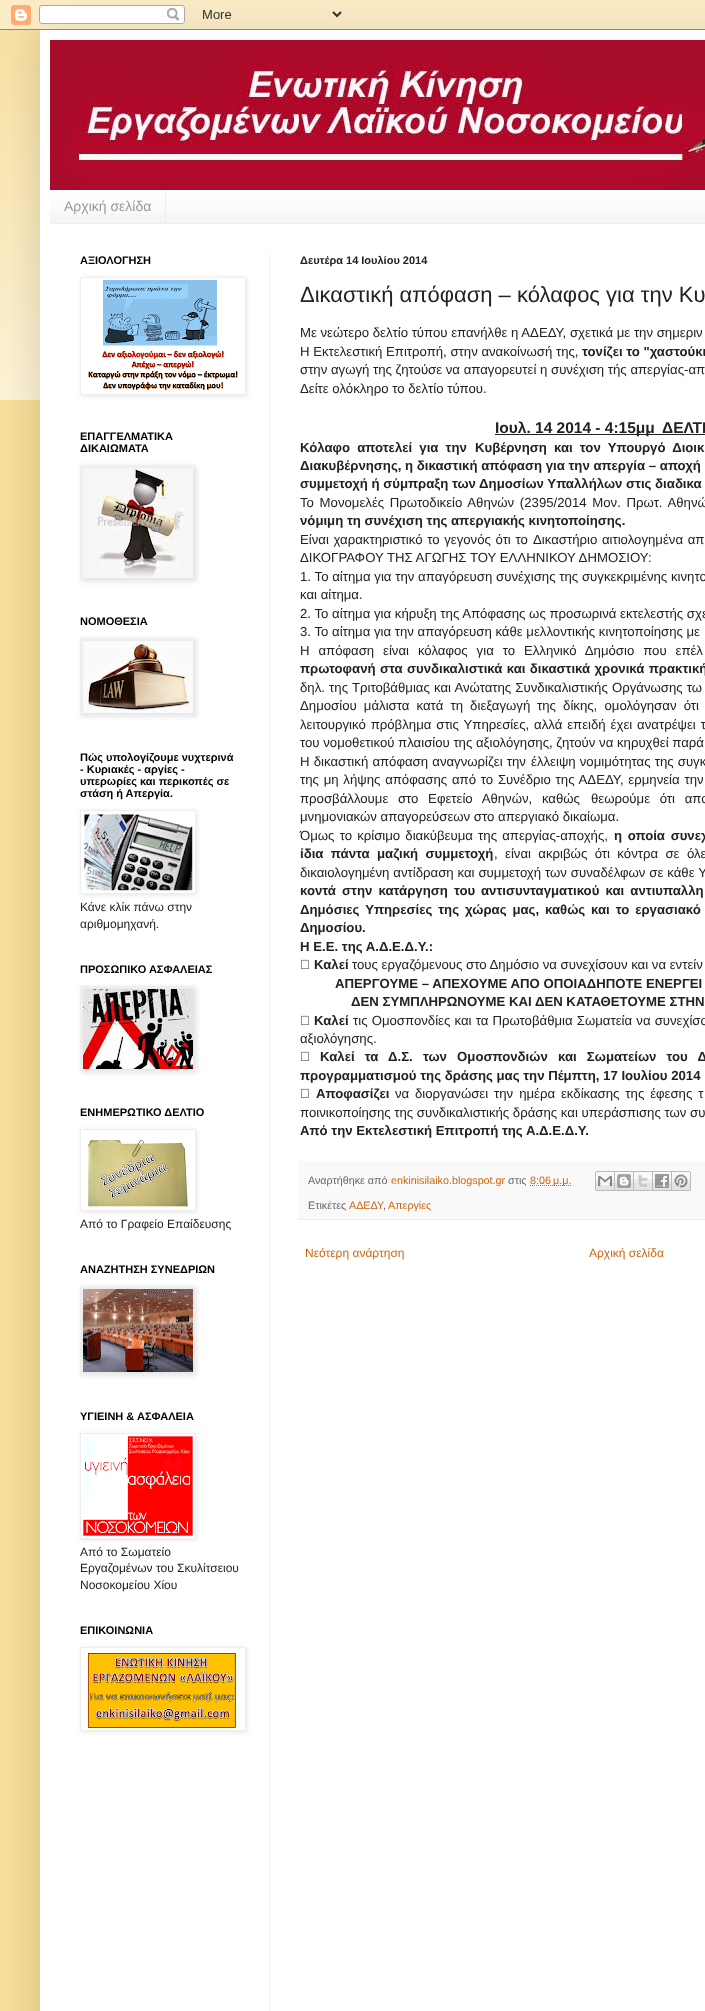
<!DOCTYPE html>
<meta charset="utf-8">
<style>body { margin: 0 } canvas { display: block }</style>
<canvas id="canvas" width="705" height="2011"></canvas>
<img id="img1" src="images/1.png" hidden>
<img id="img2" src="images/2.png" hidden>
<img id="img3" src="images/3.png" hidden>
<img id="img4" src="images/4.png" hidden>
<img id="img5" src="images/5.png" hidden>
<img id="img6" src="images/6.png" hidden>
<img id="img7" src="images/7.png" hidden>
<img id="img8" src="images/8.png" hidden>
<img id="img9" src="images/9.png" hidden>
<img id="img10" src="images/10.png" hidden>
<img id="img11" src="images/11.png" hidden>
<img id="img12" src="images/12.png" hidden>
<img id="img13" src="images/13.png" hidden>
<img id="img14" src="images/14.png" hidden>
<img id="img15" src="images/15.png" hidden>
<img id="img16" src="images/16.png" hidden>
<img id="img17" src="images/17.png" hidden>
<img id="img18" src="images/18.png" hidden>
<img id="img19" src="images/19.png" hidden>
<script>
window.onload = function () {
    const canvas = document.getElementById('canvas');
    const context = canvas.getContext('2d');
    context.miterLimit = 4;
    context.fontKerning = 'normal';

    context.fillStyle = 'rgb(248, 222, 153)';
    context.fillRect(0, 0, 705, 2011);
    context.drawImage(document.getElementById('img1'), 0, 0, 705, 400);
    context.fillStyle = 'rgba(0, 0, 0, 0.15)';
    context.filter = 'blur(20px)';
    context.beginPath();
    context.rect(40, 30, 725, 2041);
    context.fill();
    context.filter = 'none';
    context.drawImage(document.getElementById('img2'), 0, 0, 705, 30);
    context.fillStyle = 'rgb(255, 255, 255)';
    context.fillRect(40, 30, 665, 1981);
    context.drawImage(document.getElementById('img3'), 50, 40, 655, 150);
    context.fillStyle = 'rgb(245, 245, 245)';
    context.fillRect(50, 191, 655, 32);
    context.drawImage(document.getElementById('img4'), 50, 190, 655, 24);
    context.fillStyle = 'rgb(238, 238, 238)';
    context.fillRect(50, 223, 655, 1);
    context.fillRect(165, 190, 1, 33);
    context.fillRect(269, 254, 1, 1757);
    context.save();
    context.beginPath();
    context.moveTo(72, 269);
    context.lineTo(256, 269);
    context.lineTo(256, 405);
    context.lineTo(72, 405);
    context.closePath();
    context.moveTo(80, 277);
    context.lineTo(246, 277);
    context.lineTo(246, 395);
    context.lineTo(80, 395);
    context.closePath();
    context.clip('evenodd');
    context.fillStyle = 'rgba(0, 0, 0, 0.1)';
    context.filter = 'blur(2.5px)';
    context.beginPath();
    context.rect(81, 278, 166, 118);
    context.fill();
    context.filter = 'none';
    context.restore();
    context.strokeStyle = 'rgb(238, 238, 238)';
    context.strokeRect(80.5, 277.5, 165, 117);
    context.drawImage(document.getElementById('img5'), 88, 280, 150, 110);
    context.fillStyle = 'rgba(0, 0, 0, 0.1)';
    context.filter = 'blur(2.5px)';
    context.beginPath();
    context.rect(81, 466, 116, 116);
    context.fill();
    context.filter = 'none';
    context.strokeRect(80.5, 465.5, 115, 115);
    context.drawImage(document.getElementById('img6'), 83, 468, 110, 110);
    context.filter = 'blur(2.5px)';
    context.beginPath();
    context.rect(81, 639, 116, 78);
    context.fill();
    context.filter = 'none';
    context.strokeRect(80.5, 638.5, 115, 77);
    context.drawImage(document.getElementById('img7'), 83, 641, 110, 72);
    context.save();
    context.beginPath();
    context.moveTo(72, 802);
    context.lineTo(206, 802);
    context.lineTo(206, 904);
    context.lineTo(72, 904);
    context.closePath();
    context.moveTo(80, 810);
    context.lineTo(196, 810);
    context.lineTo(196, 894);
    context.lineTo(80, 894);
    context.closePath();
    context.clip('evenodd');
    context.filter = 'blur(2.5px)';
    context.beginPath();
    context.rect(81, 811, 116, 84);
    context.fill();
    context.filter = 'none';
    context.restore();
    context.strokeRect(80.5, 810.5, 115, 83);
    context.drawImage(document.getElementById('img8'), 83, 813, 110, 78);
    context.filter = 'blur(2.5px)';
    context.beginPath();
    context.rect(81, 987, 116, 86);
    context.fill();
    context.filter = 'none';
    context.strokeRect(80.5, 986.5, 115, 85);
    context.drawImage(document.getElementById('img9'), 83, 989, 110, 80);
    context.save();
    context.beginPath();
    context.moveTo(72, 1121);
    context.lineTo(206, 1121);
    context.lineTo(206, 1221);
    context.lineTo(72, 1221);
    context.closePath();
    context.moveTo(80, 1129);
    context.lineTo(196, 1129);
    context.lineTo(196, 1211);
    context.lineTo(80, 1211);
    context.closePath();
    context.clip('evenodd');
    context.filter = 'blur(2.5px)';
    context.beginPath();
    context.rect(81, 1130, 116, 82);
    context.fill();
    context.filter = 'none';
    context.restore();
    context.strokeRect(80.5, 1129.5, 115, 81);
    context.drawImage(document.getElementById('img10'), 84, 1139, 106, 68);
    context.filter = 'blur(2.5px)';
    context.beginPath();
    context.rect(81, 1287, 116, 89);
    context.fill();
    context.filter = 'none';
    context.strokeRect(80.5, 1286.5, 115, 88);
    context.drawImage(document.getElementById('img11'), 83, 1289, 110, 83);
    context.save();
    context.beginPath();
    context.moveTo(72, 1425);
    context.lineTo(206, 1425);
    context.lineTo(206, 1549);
    context.lineTo(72, 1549);
    context.closePath();
    context.moveTo(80, 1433);
    context.lineTo(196, 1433);
    context.lineTo(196, 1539);
    context.lineTo(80, 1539);
    context.closePath();
    context.clip('evenodd');
    context.filter = 'blur(2.5px)';
    context.beginPath();
    context.rect(81, 1434, 116, 106);
    context.fill();
    context.filter = 'none';
    context.restore();
    context.strokeRect(80.5, 1433.5, 115, 105);
    context.drawImage(document.getElementById('img12'), 83, 1436, 110, 100);
    context.save();
    context.beginPath();
    context.moveTo(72, 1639);
    context.lineTo(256, 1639);
    context.lineTo(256, 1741);
    context.lineTo(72, 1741);
    context.closePath();
    context.moveTo(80, 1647);
    context.lineTo(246, 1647);
    context.lineTo(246, 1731);
    context.lineTo(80, 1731);
    context.closePath();
    context.clip('evenodd');
    context.filter = 'blur(2.5px)';
    context.beginPath();
    context.rect(81, 1648, 166, 84);
    context.fill();
    context.filter = 'none';
    context.restore();
    context.strokeRect(80.5, 1647.5, 165, 83);
    context.drawImage(document.getElementById('img13'), 88, 1653, 148, 75);
    context.fillStyle = 'rgb(34, 34, 34)';
    context.fillRect(495, 434, 210, 1);
    context.drawImage(document.getElementById('img14'), 301, 959, 8, 10);
    context.drawImage(document.getElementById('img14'), 301, 1015, 8, 10);
    context.drawImage(document.getElementById('img14'), 301, 1051, 8, 10);
    context.drawImage(document.getElementById('img14'), 301, 1088, 8, 10);
    context.fillStyle = 'rgb(249, 249, 249)';
    context.fillRect(298, 1161, 407, 58);
    context.fillStyle = 'rgb(238, 238, 238)';
    context.fillRect(298, 1219, 407, 1);
    context.beginPath();
    context.moveTo(530, 1185.5);
    context.lineTo(571.5, 1185.5);
    context.strokeStyle = 'rgb(204, 102, 17)';
    context.setLineDash([1, 1]);
    context.stroke();
    context.drawImage(document.getElementById('img15'), 595, 1171, 20, 20);
    context.drawImage(document.getElementById('img16'), 615, 1171, 19, 20);
    context.drawImage(document.getElementById('img17'), 634, 1171, 19, 20);
    context.drawImage(document.getElementById('img18'), 653, 1171, 19, 20);
    context.drawImage(document.getElementById('img19'), 672, 1171, 19, 20);
    context.font = '14px Liberation Sans';
    context.fillStyle = 'rgb(153, 153, 153)';
    context.fillText('Αρχική σελίδα', 64, 211);
    context.font = 'bold 11px Liberation Sans';
    context.fillStyle = 'rgb(0, 0, 0)';
    context.fillText('ΑΞΙΟΛΟΓΗΣΗ', 80, 264);
    context.fillText('ΕΠΑΓΓΕΛΜΑΤΙΚΑ', 80, 440);
    context.fillText('ΔΙΚΑΙΩΜΑΤΑ', 80, 452);
    context.fillText('ΝΟΜΟΘΕΣΙΑ', 80, 625);
    context.fillText('Πώς υπολογίζουμε νυχτερινά', 80, 761);
    context.fillText('- Κυριακές - αργίες -', 80, 773);
    context.fillText('υπερωρίες και περικοπές σε', 80, 785);
    context.fillText('στάση ή Απεργία.', 80, 797);
    context.font = '12px Liberation Sans';
    context.fillStyle = 'rgb(34, 34, 34)';
    context.fillText('Κάνε κλίκ πάνω στην', 80, 911);
    context.fillText('αριθμομηχανή.', 80, 928);
    context.font = 'bold 11px Liberation Sans';
    context.fillStyle = 'rgb(0, 0, 0)';
    context.fillText('ΠΡΟΣΩΠΙΚΟ ΑΣΦΑΛΕΙΑΣ', 80, 973);
    context.fillText('ΕΝΗΜΕΡΩΤΙΚΟ ΔΕΛΤΙΟ', 80, 1116);
    context.font = '12px Liberation Sans';
    context.fillStyle = 'rgb(34, 34, 34)';
    context.fillText('Από το Γραφείο Επαίδευσης', 80, 1228);
    context.font = 'bold 11px Liberation Sans';
    context.fillStyle = 'rgb(0, 0, 0)';
    context.fillText('ΑΝΑΖΗΤΗΣΗ ΣΥΝΕΔΡΙΩΝ', 80, 1273);
    context.fillText('ΥΓΙΕΙΝΗ & ΑΣΦΑΛΕΙΑ', 80, 1420);
    context.font = '12px Liberation Sans';
    context.fillStyle = 'rgb(34, 34, 34)';
    context.fillText('Από το Σωματείο', 80, 1556);
    context.fillText('Εργαζομένων του Σκυλίτσειου', 80, 1572);
    context.fillText('Νοσοκομείου Χίου', 80, 1589);
    context.font = 'bold 11px Liberation Sans';
    context.fillStyle = 'rgb(0, 0, 0)';
    context.fillText('ΕΠΙΚΟΙΝΩΝΙΑ', 80, 1634);
    context.fillStyle = 'rgb(34, 34, 34)';
    context.fillText('Δευτέρα 14 Ιουλίου 2014', 300, 264);
    context.font = '22px Liberation Sans';
    context.fillText('Δικαστική απόφαση – κόλαφος για την Κυ', 300, 302);
    context.font = '13.2px Liberation Sans';
    context.fillText('Με νεώτερο δελτίο τύπου επανήλθε η ΑΔΕΔΥ, σχετικά με την σημεριν', 300, 337);
    context.fillText('Η Εκτελεστική Επιτροπή, στην ανακοίνωσή της,', 300, 356);
    context.font = 'bold 13.2px Liberation Sans';
    context.fillText('τονίζει το "χαστούκι', 582, 356);
    context.font = '13.2px Liberation Sans';
    context.fillText('στην αγωγή της ζητούσε να απαγορευτεί η συνέχιση τής απεργίας-απ', 300, 374);
    context.fillText('Δείτε ολόκληρο το δελτίο τύπου.', 300, 393);
    context.font = 'bold 15.5px Liberation Sans';
    context.fillText('Ιουλ. 14 2014 - 4:15μμ', 495, 433);
    context.fillText('ΔΕΛΤΙ', 662, 433);
    context.wordSpacing = '3.5px';
    context.font = 'bold 13.2px Liberation Sans';
    context.fillText('Κόλαφο αποτελεί για την', 300, 452);
    context.fillText('Κυβέρνηση και τον Υπουργό Διοικ', 475, 452);
    context.wordSpacing = '0px';
    context.fillText('Διακυβέρνησης, η δικαστική απόφαση για την απεργία – αποχή', 300, 470);
    context.fillText('συμμετοχή ή σύμπραξη των Δημοσίων Υπαλλήλων στις διαδικα', 300, 488);
    context.wordSpacing = '2px';
    context.font = '13.2px Liberation Sans';
    context.fillText('Το Μονομελές Πρωτοδικείο Αθηνών (2395/2014 Μον. Πρωτ. Αθηνώ', 300, 507);
    context.wordSpacing = '0px';
    context.font = 'bold 13.2px Liberation Sans';
    context.fillText('νόμιμη τη συνέχιση της απεργιακής κινητοποίησης.', 300, 525);
    context.wordSpacing = '1px';
    context.font = '13.2px Liberation Sans';
    context.fillText('Είναι χαρακτηριστικό το γεγονός ότι το', 300, 544);
    context.fillText('Δικαστήριο αιτιολογημένα απ', 533, 544);
    context.wordSpacing = '0px';
    context.fillText('ΔΙΚΟΓΡΑΦΟΥ ΤΗΣ ΑΓΩΓΗΣ ΤΟΥ ΕΛΛΗΝΙΚΟΥ ΔΗΜΟΣΙΟΥ:', 300, 562);
    context.wordSpacing = '0.1px';
    context.fillText('1. Το αίτημα για την απαγόρευση συνέχισης της συγκεκριμένης κινητο', 300, 581);
    context.wordSpacing = '0px';
    context.fillText('και αίτημα.', 300, 599);
    context.fillText('2. Το αίτημα για κήρυξη της Απόφασης ως προσωρινά εκτελεστής σχε', 300, 618);
    context.fillText('3. Το αίτημα για την απαγόρευση κάθε μελλοντικής κινητοποίησης με', 300, 636);
    context.wordSpacing = '5.25px';
    context.fillText('Η απόφαση είναι κόλαφος για το Ελληνικό Δημόσιο που επέλ', 300, 655);
    context.wordSpacing = '0.75px';
    context.font = 'bold 13.2px Liberation Sans';
    context.fillText('πρωτοφανή στα συνδικαλιστικά και δικαστικά χρονικά πρακτική', 300, 673);
    context.wordSpacing = '0.5px';
    context.font = '13.2px Liberation Sans';
    context.fillText('δηλ. της Τριτοβάθμιας και Ανώτατης Συνδικαλιστικής Οργάνωσης τω', 300, 692);
    context.wordSpacing = '3.5px';
    context.fillText('Δημοσίου μάλιστα κατά τη διεξαγωγή', 300, 710);
    context.fillText('της δίκης, ομολόγησαν ότι', 537, 710);
    context.wordSpacing = '1.25px';
    context.fillText('λειτουργικό πρόβλημα στις Υπηρεσίες, αλλά επειδή έχει ανατρέψει τ', 300, 729);
    context.wordSpacing = '0px';
    context.fillText('του νομοθετικού πλαισίου της αξιολόγησης, ζητούν να κηρυχθεί παρά', 300, 747);
    context.wordSpacing = '0.5px';
    context.fillText('Η δικαστική απόφαση αναγνωρίζει την', 300, 766);
    context.fillText('έλλειψη νομιμότητας της συγκ', 531, 766);
    context.wordSpacing = '1.1px';
    context.fillText('της μη λήψης απόφασης από το Συνέδριο της ΑΔΕΔΥ, ερμηνεία την', 300, 784);
    context.wordSpacing = '6px';
    context.fillText('προσβάλλουμε στο Εφετείο Αθηνών, καθώς', 300, 803);
    context.fillText('θεωρούμε ότι απο', 591, 803);
    context.wordSpacing = '0px';
    context.fillText('μνημονιακών απαγορεύσεων στο απεργιακό δικαίωμα.', 300, 821);
    context.wordSpacing = '1.5px';
    context.fillText('Όμως το κρίσιμο διακύβευμα της απεργίας-αποχής,', 300, 840);
    context.wordSpacing = '2px';
    context.font = 'bold 13.2px Liberation Sans';
    context.fillText('η οποία συνεχ', 614, 840);
    context.wordSpacing = '3.75px';
    context.fillText('ίδια πάντα μαζική συμμετοχή', 300, 858);
    context.wordSpacing = '0px';
    context.font = '13.2px Liberation Sans';
    context.fillText(',', 494, 858);
    context.wordSpacing = '3.75px';
    context.fillText('είναι ακριβώς ότι κόντρα σε όλε', 505, 858);
    context.wordSpacing = '0.25px';
    context.fillText('δικαιολογημένη αντίδραση και συμμετοχή των συναδέλφων σε κάθε Υ', 300, 877);
    context.wordSpacing = '2.5px';
    context.font = 'bold 13.2px Liberation Sans';
    context.fillText('κοντά στην κατάργηση του', 300, 895);
    context.fillText('αντισυνταγματικού και αντιυπαλλη', 481, 895);
    context.wordSpacing = '2.25px';
    context.fillText('Δημόσιες Υπηρεσίες της χώρας μας, καθώς και το εργασιακό', 300, 914);
    context.wordSpacing = '0px';
    context.fillText('Δημοσίου.', 300, 932);
    context.fillText('Η Ε.Ε. της Α.Δ.Ε.Δ.Υ.:', 300, 951);
    context.fillText('Καλεί', 314, 969);
    context.font = '13.2px Liberation Sans';
    context.fillText('τους εργαζόμενους στο Δημόσιο να συνεχίσουν και να εντείν', 352, 969);
    context.font = 'bold 13.2px Liberation Sans';
    context.fillText('ΑΠΕΡΓΟΥΜΕ – ΑΠΕΧΟΥΜΕ ΑΠΟ ΟΠΟΙΑΔΗΠΟΤΕ ΕΝΕΡΓΕΙ', 335, 988);
    context.fillText('ΔΕΝ ΣΥΜΠΛΗΡΩΝΟΥΜΕ ΚΑΙ ΔΕΝ ΚΑΤΑΘΕΤΟΥΜΕ ΣΤΗΝ', 351, 1006);
    context.fillText('Καλεί', 314, 1025);
    context.wordSpacing = '0.5px';
    context.font = '13.2px Liberation Sans';
    context.fillText('τις Ομοσπονδίες και τα Πρωτοβάθμια Σωματεία να συνεχίσο', 353, 1025);
    context.wordSpacing = '0px';
    context.fillText('αξιολόγησης.', 300, 1043);
    context.wordSpacing = '6.5px';
    context.font = 'bold 13.2px Liberation Sans';
    context.fillText('Καλεί τα Δ.Σ. των Ομοσπονδιών', 320, 1061);
    context.fillText('και Σωματείων του Δ', 558, 1061);
    context.wordSpacing = '0px';
    context.fillText('προγραμματισμού της δράσης μας την Πέμπτη, 17 Ιουλίου 2014', 300, 1080);
    context.fillText('Αποφασίζει', 316, 1098);
    context.font = '13.2px Liberation Sans';
    context.fillText('να', 395, 1098);
    context.wordSpacing = '2.25px';
    context.fillText('διοργανώσει την ημέρα εκδίκασης της έφεσης τ', 415, 1098);
    context.wordSpacing = '0px';
    context.fillText('ποινικοποίησης της συνδικαλιστικής δράσης και υπεράσπισης των συ', 300, 1117);
    context.font = 'bold 13.2px Liberation Sans';
    context.fillText('Από την Εκτελεστική Επιτροπή της Α.Δ.Ε.Δ.Υ.', 300, 1135);
    context.font = '10.75px Liberation Sans';
    context.fillStyle = 'rgb(102, 102, 102)';
    context.fillText('Αναρτήθηκε από', 308, 1184);
    context.fillStyle = 'rgb(204, 102, 17)';
    context.fillText('enkinisilaiko.blogspot.gr', 391, 1184);
    context.fillStyle = 'rgb(102, 102, 102)';
    context.fillText('στις', 508, 1184);
    context.fillStyle = 'rgb(204, 102, 17)';
    context.fillText('8:06 μ.μ.', 530, 1184);
    context.fillStyle = 'rgb(102, 102, 102)';
    context.fillText('Ετικέτες', 308, 1209);
    context.fillStyle = 'rgb(204, 102, 17)';
    context.fillText('ΑΔΕΔΥ', 349, 1209);
    context.fillText('Απεργίες', 388, 1209);
    context.fillStyle = 'rgb(102, 102, 102)';
    context.fillText(',', 383, 1209);
    context.font = '12px Liberation Sans';
    context.fillStyle = 'rgb(204, 102, 17)';
    context.fillText('Νεότερη ανάρτηση', 305, 1257);
    context.fillText('Αρχική σελίδα', 589, 1257);
};
</script>
